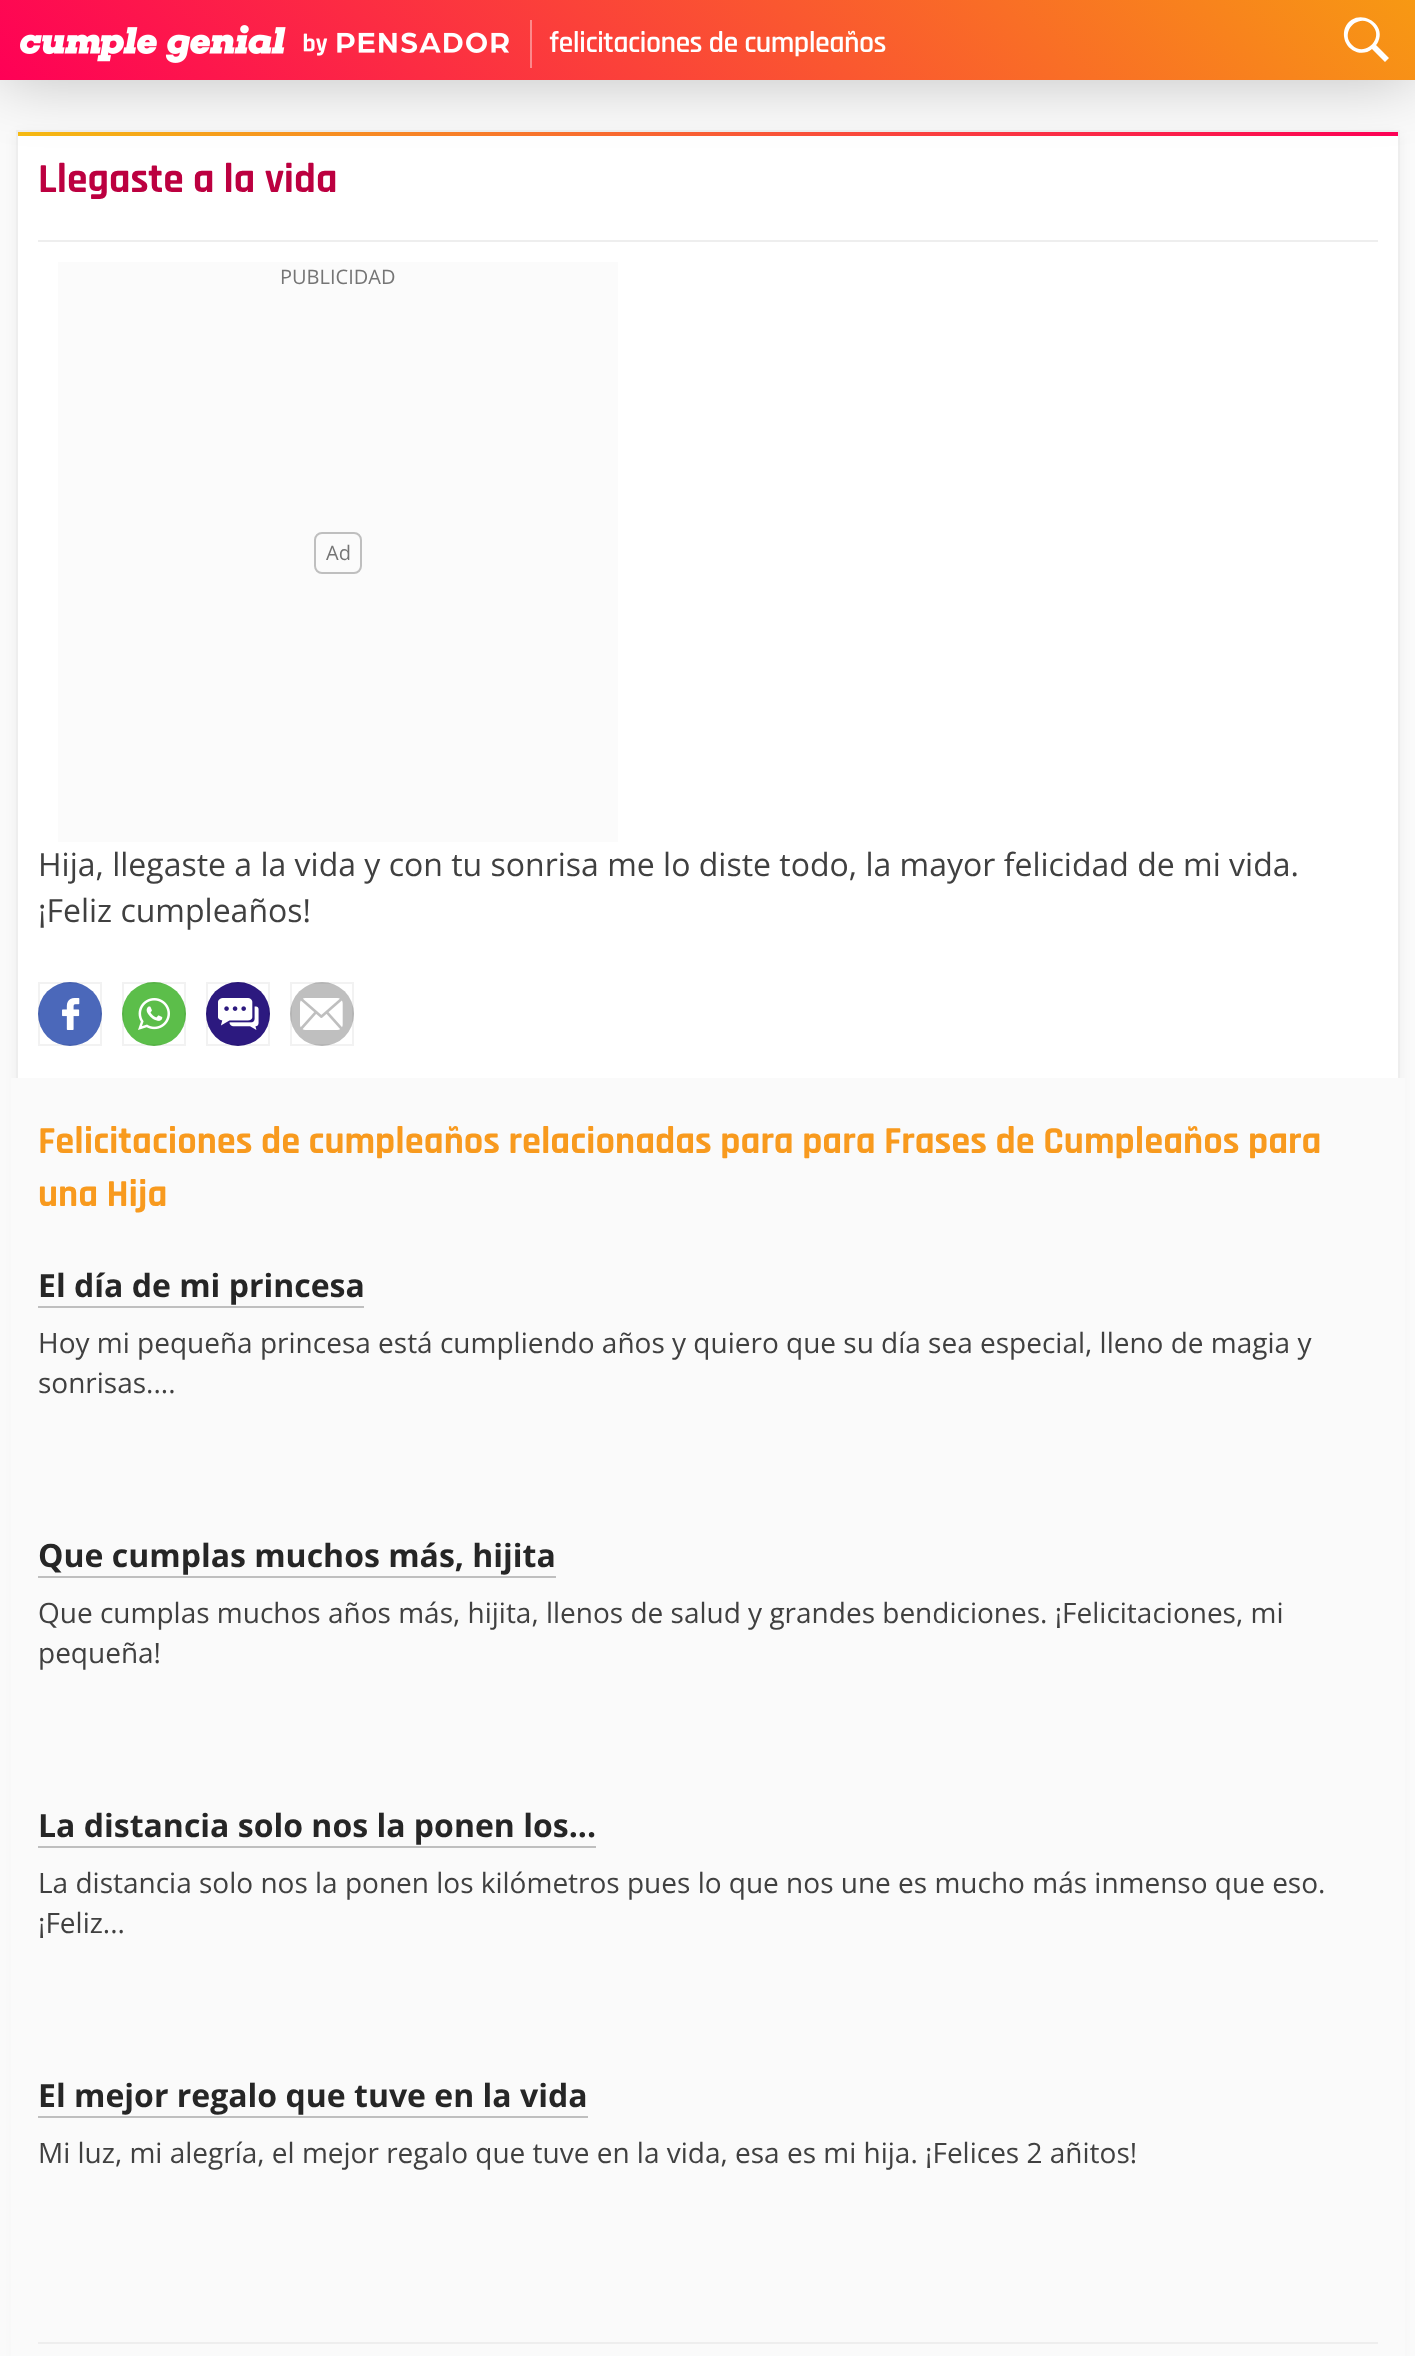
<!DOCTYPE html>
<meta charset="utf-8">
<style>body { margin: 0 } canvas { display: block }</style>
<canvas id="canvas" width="1415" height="2375"></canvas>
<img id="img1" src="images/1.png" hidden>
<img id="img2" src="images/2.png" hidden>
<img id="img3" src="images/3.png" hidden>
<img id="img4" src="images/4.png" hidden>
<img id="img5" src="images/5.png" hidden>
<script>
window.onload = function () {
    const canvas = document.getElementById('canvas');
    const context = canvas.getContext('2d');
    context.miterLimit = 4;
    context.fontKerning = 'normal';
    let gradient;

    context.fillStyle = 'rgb(250, 250, 250)';
    context.fillRect(0, 0, 1415, 2375);
    context.fillStyle = 'rgba(0, 0, 0, 0.05)';
    context.filter = 'blur(6px)';
    context.beginPath();
    context.rect(16, 134, 1384, 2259);
    context.fill();
    context.filter = 'none';
    context.fillStyle = 'rgb(255, 255, 255)';
    context.fillRect(18, 136, 1380, 942);
    context.strokeStyle = 'rgb(238, 238, 238)';
    context.lineWidth = 2;
    context.strokeRect(17, 131, 1382, 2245);
    gradient = context.createLinearGradient(18, 134, 1398, 134);
    gradient.addColorStop(0, 'rgb(247, 187, 19)');
    gradient.addColorStop(1, 'rgb(254, 0, 86)');
    context.fillStyle = gradient;
    context.fillRect(18, 132, 1380, 4);
    context.fillStyle = 'rgba(0, 0, 0, 0.23)';
    context.filter = 'blur(32px)';
    context.beginPath();
    context.rect(0, 0, 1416, 80);
    context.fill();
    context.filter = 'none';
    gradient = context.createLinearGradient(334, 414, 1082, -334);
    gradient.addColorStop(0, 'rgb(254, 0, 86)');
    gradient.addColorStop(1, 'rgb(247, 153, 19)');
    context.fillStyle = gradient;
    context.fillRect(0, 0, 1415, 80);
    gradient = context.createLinearGradient(334, 414, 1082, -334);
    gradient.addColorStop(0, 'rgb(254, 102, 154)');
    gradient.addColorStop(1, 'rgb(250, 194, 113)');
    context.fillStyle = gradient;
    context.fillRect(530, 20, 2, 48);
    context.drawImage(document.getElementById('img1'), 20, 25, 489, 38);
    context.fillStyle = 'rgb(255, 255, 255)';
    context.beginPath();
    context.moveTo(1377, 44);
    context.lineTo(1376, 45);
    context.lineTo(1389, 58);
    context.lineTo(1385, 62);
    context.lineTo(1372, 49);
    context.bezierCurveTo(1364, 56, 1351, 53, 1346, 43);
    context.bezierCurveTo(1344, 39, 1343, 33, 1345, 28);
    context.bezierCurveTo(1355, 5, 1390, 23, 1377, 44);
    context.closePath();
    context.moveTo(1372, 25);
    context.bezierCurveTo(1359, 12, 1339, 32, 1352, 45);
    context.bezierCurveTo(1365, 58, 1385, 38, 1372, 25);
    context.closePath();
    context.fill();
    context.fillStyle = 'rgb(238, 238, 238)';
    context.fillRect(38, 240, 1340, 2);
    context.fillStyle = 'rgb(251, 251, 251)';
    context.fillRect(58, 262, 560, 580);
    context.beginPath();
    context.roundRect(315, 533, 46, 40, 7);
    context.strokeStyle = 'rgb(191, 191, 191)';
    context.stroke();
    context.fillStyle = 'rgb(75, 104, 186)';
    context.beginPath();
    context.arc(70, 1014, 32, 0, 2 * Math.PI);
    context.fill();
    context.strokeStyle = 'rgba(0, 0, 0, 0.05)';
    context.strokeRect(39, 983, 62, 62);
    context.drawImage(document.getElementById('img2'), 62, 998, 18, 32);
    context.fillStyle = 'rgb(92, 190, 74)';
    context.beginPath();
    context.arc(154, 1014, 32, 0, 2 * Math.PI);
    context.fill();
    context.strokeRect(123, 983, 62, 62);
    context.drawImage(document.getElementById('img3'), 138, 998, 32, 32);
    context.fillStyle = 'rgb(44, 25, 127)';
    context.beginPath();
    context.arc(238, 1014, 32, 0, 2 * Math.PI);
    context.fill();
    context.strokeRect(207, 983, 62, 62);
    context.drawImage(document.getElementById('img4'), 218, 998, 41, 32);
    context.fillStyle = 'rgb(191, 191, 191)';
    context.beginPath();
    context.arc(322, 1014, 32, 0, 2 * Math.PI);
    context.fill();
    context.strokeRect(291, 983, 62, 62);
    context.drawImage(document.getElementById('img5'), 300, 998, 43, 32);
    context.fillStyle = 'rgb(250, 250, 250)';
    context.fillRect(11, 1078, 1394, 1278);
    context.fillStyle = 'rgb(191, 191, 191)';
    context.fillRect(38, 1306, 326, 2);
    context.fillRect(38, 1576, 518, 2);
    context.fillRect(38, 1846, 558, 2);
    context.fillRect(38, 2116, 550, 2);
    context.fillStyle = 'rgb(238, 238, 238)';
    context.fillRect(38, 2342, 1340, 2);
    context.fillStyle = 'rgb(255, 255, 255)';
    context.fillRect(0, 2356, 1415, 19);
    context.letterSpacing = '-0.6px';
    context.font = '600 30px Rajdhani';
    context.fillText('felicitaciones de cumpleaños', 549, 52);
    context.letterSpacing = '0px';
    context.font = 'bold 41.5px Rajdhani';
    context.fillStyle = 'rgb(188, 0, 64)';
    context.fillText('Llegaste a la vida', 38, 192);
    context.font = '20px Open Sans';
    context.fillStyle = 'rgb(117, 117, 117)';
    context.fillText('PUBLICIDAD', 280, 284);
    context.fillText('Ad', 326, 560);
    context.font = '32px Open Sans';
    context.fillStyle = 'rgb(64, 64, 64)';
    context.fillText('Hija, llegaste a la vida y con tu sonrisa me lo diste todo, la mayor felicidad de mi vida.', 38, 876);
    context.fillText('¡Feliz cumpleaños!', 38, 922);
    context.font = 'bold 38.4px Rajdhani';
    context.fillStyle = 'rgb(248, 154, 30)';
    context.fillText('Felicitaciones de cumpleaños relacionadas para para Frases de Cumpleaños para', 38, 1153);
    context.fillText('una Hija', 38, 1206);
    context.font = 'bold 32px Open Sans';
    context.fillStyle = 'rgb(38, 38, 38)';
    context.fillText('El día de mi princesa', 38, 1297);
    context.font = '28px Open Sans';
    context.fillStyle = 'rgb(64, 64, 64)';
    context.fillText('Hoy mi pequeña princesa está cumpliendo años y quiero que su día sea especial, lleno de magia y', 38, 1353);
    context.fillText('sonrisas....', 38, 1393);
    context.font = 'bold 32px Open Sans';
    context.fillStyle = 'rgb(38, 38, 38)';
    context.fillText('Que cumplas muchos más, hijita', 38, 1567);
    context.font = '28px Open Sans';
    context.fillStyle = 'rgb(64, 64, 64)';
    context.fillText('Que cumplas muchos años más, hijita, llenos de salud y grandes bendiciones. ¡Felicitaciones, mi', 38, 1623);
    context.fillText('pequeña!', 38, 1663);
    context.font = 'bold 32px Open Sans';
    context.fillStyle = 'rgb(38, 38, 38)';
    context.fillText('La distancia solo nos la ponen los...', 38, 1837);
    context.font = '28px Open Sans';
    context.fillStyle = 'rgb(64, 64, 64)';
    context.fillText('La distancia solo nos la ponen los kilómetros pues lo que nos une es mucho más inmenso que eso.', 38, 1893);
    context.fillText('¡Feliz...', 38, 1933);
    context.font = 'bold 32px Open Sans';
    context.fillStyle = 'rgb(38, 38, 38)';
    context.fillText('El mejor regalo que tuve en la vida', 38, 2107);
    context.font = '28px Open Sans';
    context.fillStyle = 'rgb(64, 64, 64)';
    context.fillText('Mi luz, mi alegría, el mejor regalo que tuve en la vida, esa es mi hija. ¡Felices 2 añitos!', 38, 2163);
};
</script>
